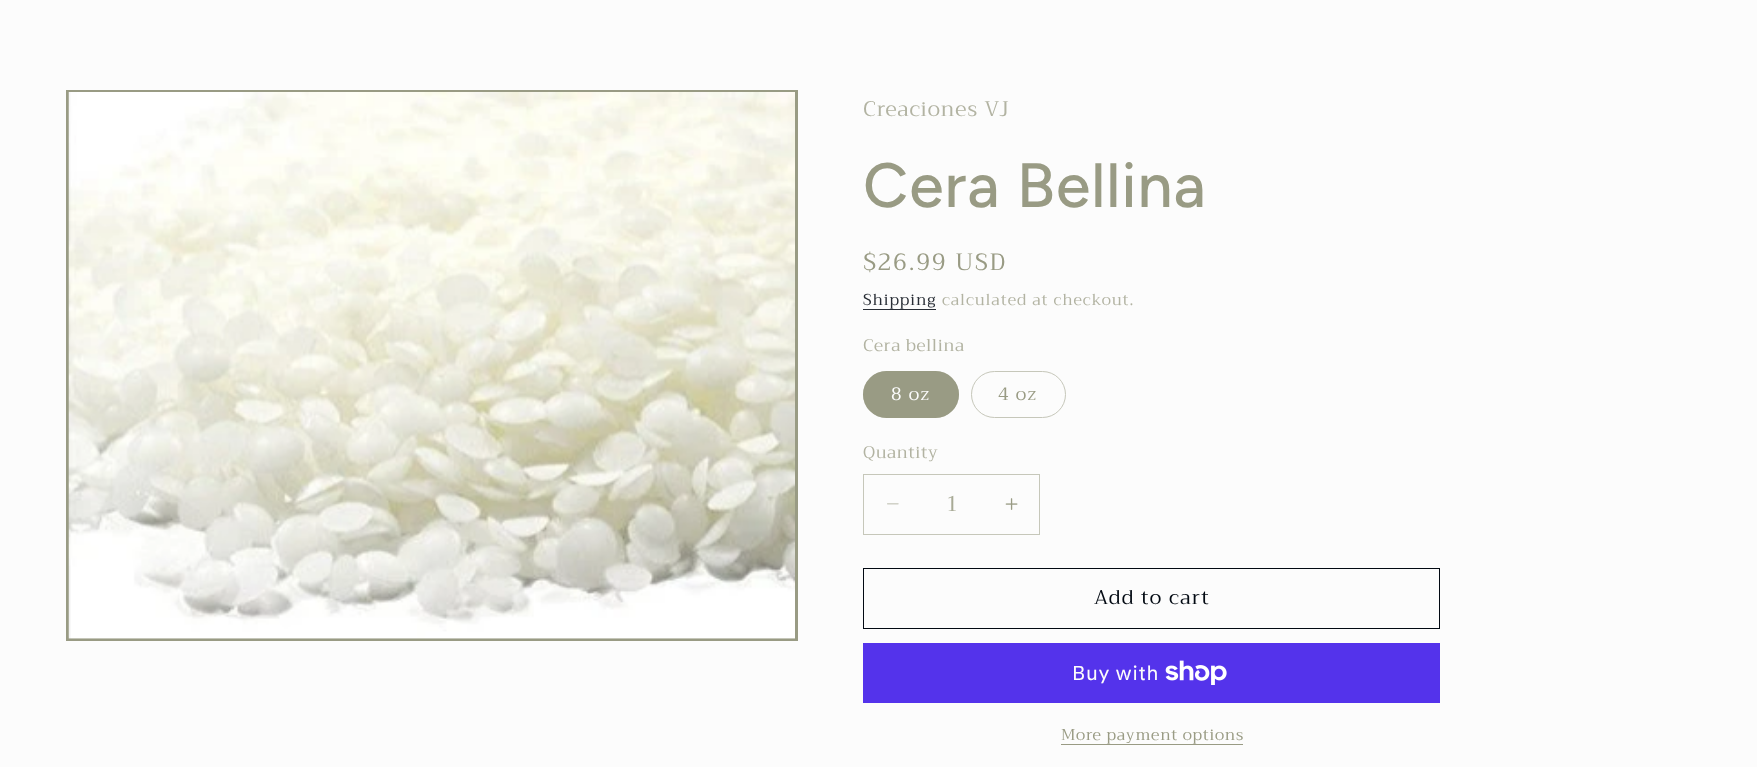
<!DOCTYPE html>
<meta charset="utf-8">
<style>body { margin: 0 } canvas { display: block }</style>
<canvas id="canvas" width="1757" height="767"></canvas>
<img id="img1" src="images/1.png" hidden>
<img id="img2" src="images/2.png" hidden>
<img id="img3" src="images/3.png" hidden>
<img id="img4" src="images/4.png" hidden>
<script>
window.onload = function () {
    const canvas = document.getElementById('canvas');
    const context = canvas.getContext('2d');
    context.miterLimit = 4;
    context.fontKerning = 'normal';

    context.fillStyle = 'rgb(252, 252, 252)';
    context.fillRect(0, 0, 1757, 767);
    context.strokeStyle = 'rgb(153, 155, 132)';
    context.lineWidth = 3;
    context.strokeRect(67.5, 91.5, 729, 548);
    context.drawImage(document.getElementById('img1'), 68, 92, 727, 547);
    context.fillStyle = 'rgb(40, 45, 53)';
    context.fillRect(863, 309, 73, 1);
    context.fillStyle = 'rgb(153, 155, 132)';
    context.beginPath();
    context.roundRect(863, 371, 96, 47, 23.5);
    context.fill();
    context.beginPath();
    context.roundRect(863.5, 371.5, 95, 46, 23);
    context.strokeStyle = 'rgba(153, 155, 132, 0.55)';
    context.lineWidth = 1;
    context.stroke();
    context.beginPath();
    context.roundRect(971.5, 371.5, 94, 46, 23);
    context.strokeStyle = 'rgb(198, 199, 186)';
    context.stroke();
    context.drawImage(document.getElementById('img2'), 887, 503, 12, 2);
    context.drawImage(document.getElementById('img3'), 1005, 498, 13, 12);
    context.strokeRect(863.5, 474.5, 176, 60);
    context.strokeStyle = 'rgb(2, 9, 18)';
    context.strokeRect(863.5, 568.5, 576, 60);
    context.fillStyle = 'rgb(84, 51, 235)';
    context.fillRect(863, 643, 577, 60);
    context.drawImage(document.getElementById('img4'), 1165, 660, 62, 25);
    context.fillStyle = 'rgb(153, 155, 132)';
    context.fillRect(1061, 744, 182, 1);
    context.letterSpacing = '0.75px';
    context.font = '21px Trirong';
    context.fillStyle = 'rgb(178, 179, 162)';
    context.fillText('Creaciones VJ', 863, 116);
    context.letterSpacing = '1px';
    context.font = '500 62.5px Figtree';
    context.fillStyle = 'rgb(153, 155, 132)';
    context.fillText('Cera Bellina', 863, 207);
    context.letterSpacing = '1.75px';
    context.font = '23.5px Trirong';
    context.fillText('$26.99 USD', 863, 270);
    context.letterSpacing = '0.9px';
    context.font = '15.75px Trirong';
    context.fillStyle = 'rgb(40, 45, 53)';
    context.fillText('Shipping', 863, 305);
    context.fillStyle = 'rgb(178, 179, 162)';
    context.fillText('calculated at checkout.', 942, 305);
    context.letterSpacing = '0.5px';
    context.font = '17px Trirong';
    context.fillText('Cera bellina', 863, 351);
    context.letterSpacing = '1.25px';
    context.font = '18px Trirong';
    context.fillStyle = 'rgb(252, 252, 252)';
    context.fillText('8 oz', 891, 400);
    context.fillStyle = 'rgb(153, 155, 132)';
    context.fillText('4 oz', 998, 400);
    context.letterSpacing = '0.5px';
    context.font = '17px Trirong';
    context.fillStyle = 'rgb(178, 179, 162)';
    context.fillText('Quantity', 863, 458);
    context.letterSpacing = '0px';
    context.font = '21px Trirong';
    context.fillStyle = 'rgb(168, 170, 150)';
    context.fillText('1', 946, 511);
    context.letterSpacing = '1.25px';
    context.font = '19.75px Trirong';
    context.fillStyle = 'rgb(2, 9, 18)';
    context.fillText('Add to cart', 1094, 604);
    context.letterSpacing = '0.75px';
    context.font = '20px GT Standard';
    context.fillStyle = 'rgb(252, 252, 252)';
    context.fillText('Buy with', 1072, 680);
    context.letterSpacing = '0.7px';
    context.font = '15.75px Trirong';
    context.fillStyle = 'rgb(153, 155, 132)';
    context.fillText('More payment options', 1061, 740);
};
</script>
